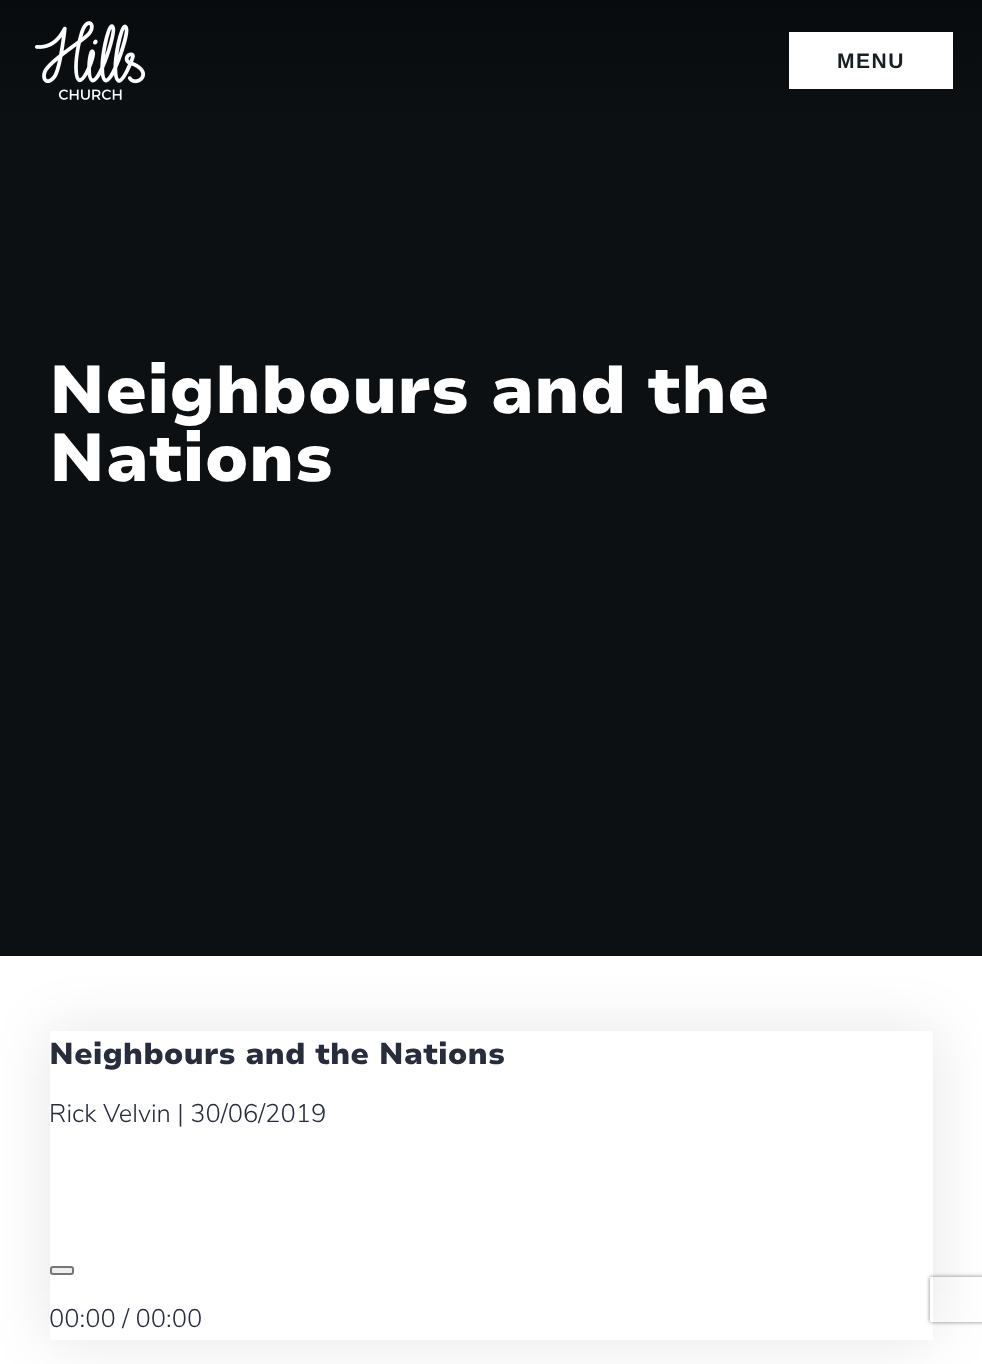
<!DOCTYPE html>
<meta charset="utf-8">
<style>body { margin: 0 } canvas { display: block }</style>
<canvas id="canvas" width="982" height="1364"></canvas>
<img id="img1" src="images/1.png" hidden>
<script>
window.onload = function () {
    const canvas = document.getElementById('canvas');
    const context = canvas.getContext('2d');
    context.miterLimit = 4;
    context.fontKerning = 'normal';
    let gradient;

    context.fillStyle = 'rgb(255, 255, 255)';
    context.fillRect(0, 0, 982, 1364);
    gradient = context.createLinearGradient(491, 0, 491, 122);
    gradient.addColorStop(0, 'rgb(8, 11, 13)');
    gradient.addColorStop(1, 'rgb(12, 16, 19)');
    context.fillStyle = gradient;
    context.fillRect(0, 0, 982, 122);
    context.drawImage(document.getElementById('img1'), 35, 21, 110, 79);
    context.fillStyle = 'rgb(255, 255, 255)';
    context.fillRect(789, 32, 164, 57);
    context.fillStyle = 'rgba(0, 0, 0, 0.1)';
    context.filter = 'blur(30px)';
    context.beginPath();
    context.rect(50, 1031, 883, 309);
    context.fill();
    context.filter = 'none';
    context.fillStyle = 'rgb(12, 16, 19)';
    context.fillRect(0, 122, 982, 834);
    context.fillStyle = 'rgb(255, 255, 255)';
    context.fillRect(50, 1031, 883, 309);
    context.fillStyle = 'rgb(239, 239, 239)';
    context.beginPath();
    context.roundRect(51, 1267, 22, 7, 2);
    context.fill();
    context.strokeStyle = 'rgb(118, 118, 118)';
    context.lineWidth = 2;
    context.stroke();
    context.save();
    context.beginPath();
    context.moveTo(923, 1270);
    context.lineTo(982, 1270);
    context.lineTo(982, 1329);
    context.lineTo(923, 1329);
    context.closePath();
    context.moveTo(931.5, 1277);
    context.lineTo(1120.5, 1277);
    context.bezierCurveTo(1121.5, 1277, 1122, 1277.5, 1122, 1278.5);
    context.lineTo(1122, 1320.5);
    context.bezierCurveTo(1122, 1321.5, 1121.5, 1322, 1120.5, 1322);
    context.lineTo(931.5, 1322);
    context.bezierCurveTo(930.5, 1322, 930, 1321.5, 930, 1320.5);
    context.lineTo(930, 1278.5);
    context.bezierCurveTo(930, 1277.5, 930.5, 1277, 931.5, 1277);
    context.closePath();
    context.clip('evenodd');
    context.fillStyle = 'rgb(128, 128, 128)';
    context.filter = 'blur(2px)';
    context.beginPath();
    context.roundRect(930, 1277, 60, 45, 1.5);
    context.fill();
    context.filter = 'none';
    context.restore();
    context.letterSpacing = '1.5px';
    context.font = 'bold 21px Liberation Sans';
    context.fillStyle = 'rgb(24, 31, 35)';
    context.fillText('MENU', 837, 68);
    context.letterSpacing = '0px';
    context.font = '900 67.5px Nunito Sans';
    context.fillStyle = 'rgb(255, 255, 255)';
    context.fillText('Neighbours and the', 49, 413);
    context.fillText('Nations', 49, 481);
    context.font = '900 30px Nunito Sans';
    context.fillStyle = 'rgb(40, 45, 61)';
    context.fillText('Neighbours and the Nations', 49, 1064);
    context.font = '300 25.5px Nunito Sans';
    context.fillText('Rick Velvin | 30/06/2019', 49, 1122);
    context.fillText('00:00 / 00:00', 49, 1327);
};
</script>
